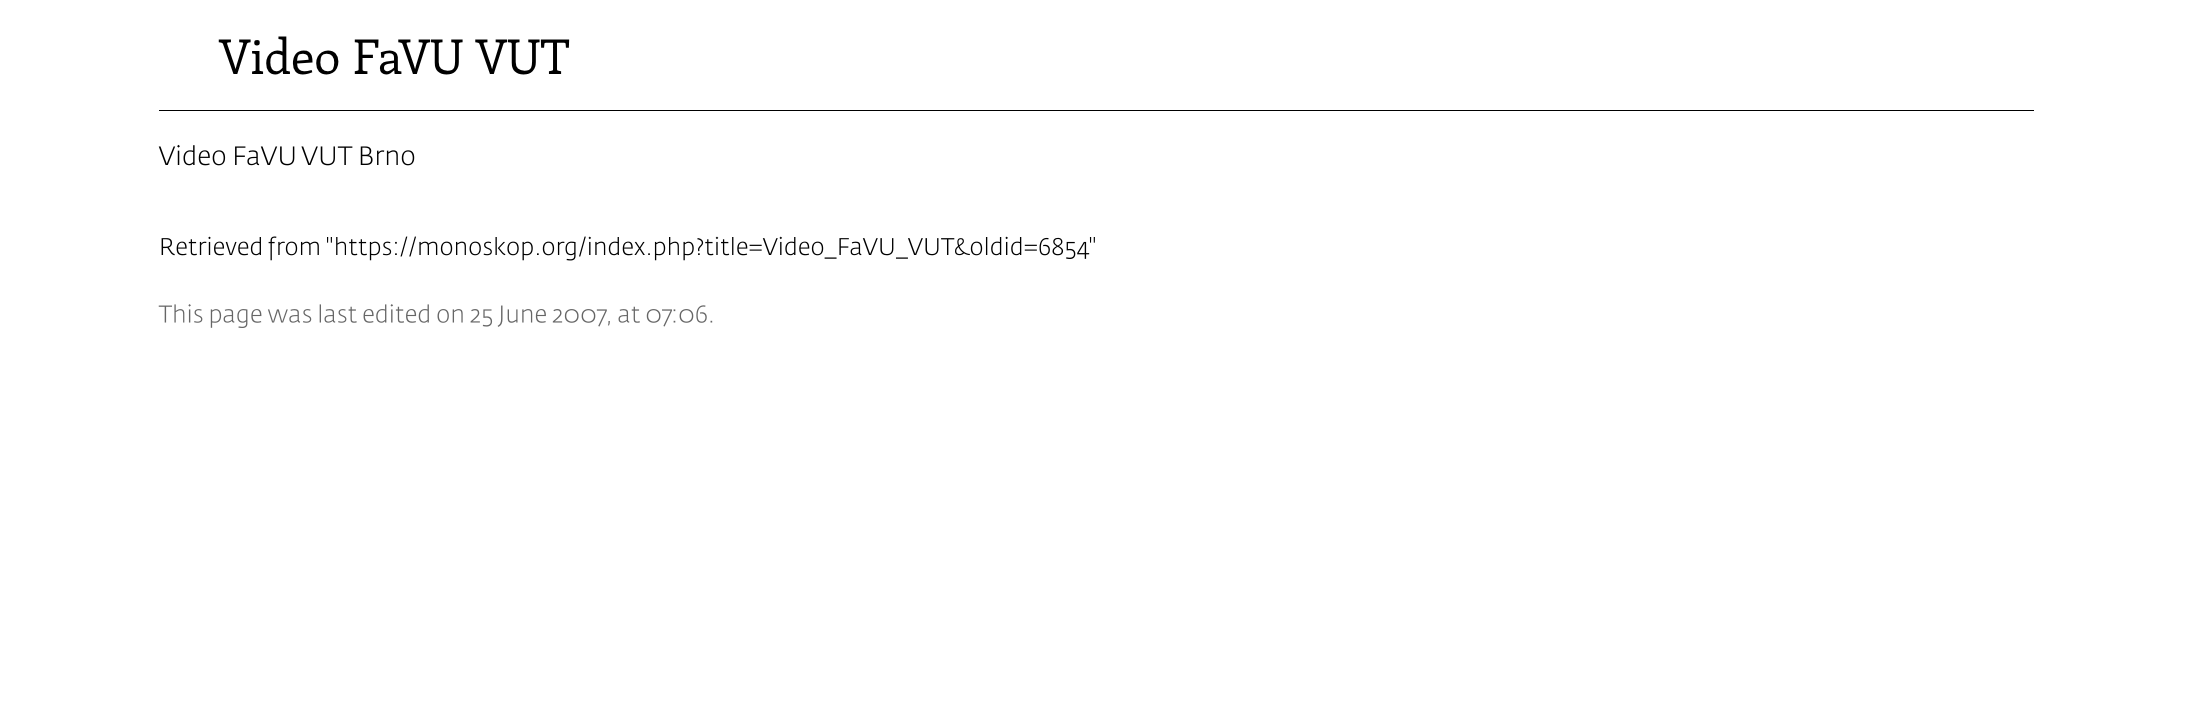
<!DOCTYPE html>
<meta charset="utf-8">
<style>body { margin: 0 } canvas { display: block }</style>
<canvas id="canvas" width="2192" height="721"></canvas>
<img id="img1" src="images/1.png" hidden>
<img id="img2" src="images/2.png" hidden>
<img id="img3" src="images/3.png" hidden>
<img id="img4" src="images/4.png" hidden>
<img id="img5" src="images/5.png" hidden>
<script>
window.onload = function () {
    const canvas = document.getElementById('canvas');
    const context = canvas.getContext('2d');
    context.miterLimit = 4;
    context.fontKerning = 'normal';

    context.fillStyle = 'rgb(255, 255, 255)';
    context.fillRect(0, 0, 2192, 721);
    context.fillStyle = 'rgb(0, 0, 0)';
    context.fillRect(159, 110, 1875, 1);
    context.drawImage(document.getElementById('img1'), 158, 144, 257, 22);
    context.drawImage(document.getElementById('img2'), 161, 236, 171, 25);
    context.drawImage(document.getElementById('img3'), 336, 236, 754, 25);
    context.drawImage(document.getElementById('img4'), 1089, 237, 6, 6);
    context.drawImage(document.getElementById('img5'), 158, 304, 555, 24);
    context.font = '48px Enriqueta';
    context.fillText('Video FaVU VUT', 219, 74);
};
</script>
